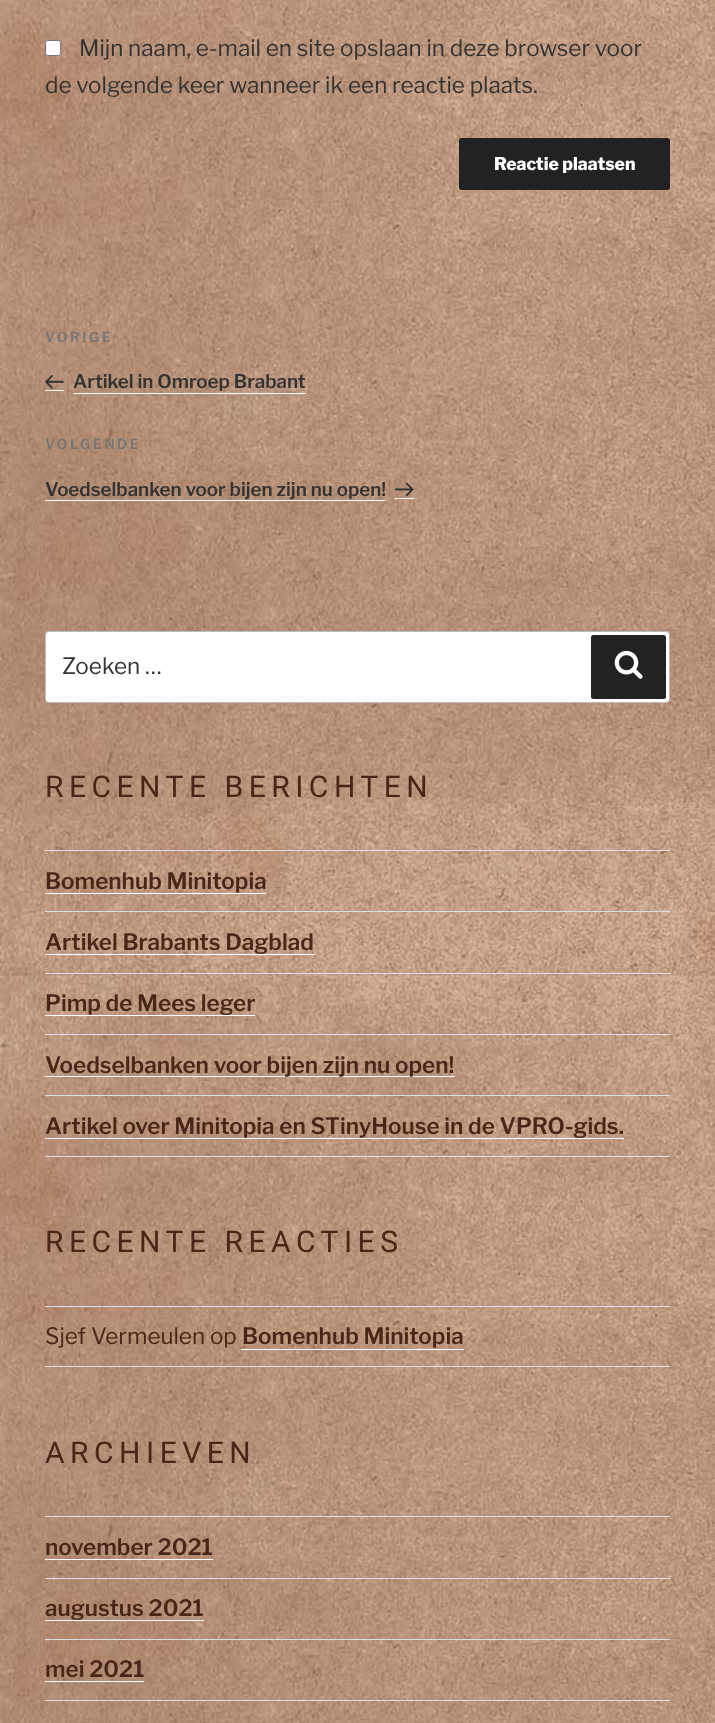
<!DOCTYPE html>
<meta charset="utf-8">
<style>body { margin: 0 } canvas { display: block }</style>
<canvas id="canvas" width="715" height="1723"></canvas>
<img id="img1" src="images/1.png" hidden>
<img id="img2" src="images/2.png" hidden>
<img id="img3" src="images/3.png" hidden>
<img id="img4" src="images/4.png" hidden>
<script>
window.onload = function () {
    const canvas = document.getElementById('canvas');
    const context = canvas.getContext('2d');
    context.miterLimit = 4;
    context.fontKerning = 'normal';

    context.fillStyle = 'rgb(255, 255, 255)';
    context.fillRect(0, 0, 715, 1723);
    context.drawImage(document.getElementById('img1'), 0, 0, 715, 1723);
    context.beginPath();
    context.roundRect(45.5, 40.5, 15, 15, 2);
    context.fill();
    context.strokeStyle = 'rgb(118, 118, 118)';
    context.stroke();
    context.fillStyle = 'rgb(34, 34, 34)';
    context.beginPath();
    context.roundRect(459, 138, 211, 52, 2.5);
    context.fill();
    context.fillStyle = 'rgb(255, 255, 255)';
    context.fillRect(45, 390, 19, 1);
    context.fillRect(74, 393, 232, 1);
    context.drawImage(document.getElementById('img2'), 45, 375, 19, 14);
    context.fillRect(45, 500, 341, 1);
    context.fillRect(395, 498, 19, 1);
    context.drawImage(document.getElementById('img3'), 395, 482, 19, 15);
    context.beginPath();
    context.roundRect(45.5, 631.5, 624, 71, 3.5);
    context.fill();
    context.strokeStyle = 'rgb(187, 187, 187)';
    context.stroke();
    context.fillStyle = 'rgb(34, 34, 34)';
    context.beginPath();
    context.roundRect(591, 635, 75, 64, 2.5);
    context.fill();
    context.drawImage(document.getElementById('img4'), 614, 650, 29, 29);
    context.fillStyle = 'rgb(221, 221, 221)';
    context.fillRect(45, 850, 625, 1);
    context.fillRect(45, 911, 625, 1);
    context.fillStyle = 'rgb(255, 255, 255)';
    context.fillRect(45, 893, 221, 1);
    context.fillStyle = 'rgb(221, 221, 221)';
    context.fillRect(45, 973, 625, 1);
    context.fillStyle = 'rgb(255, 255, 255)';
    context.fillRect(45, 954, 269, 1);
    context.fillStyle = 'rgb(221, 221, 221)';
    context.fillRect(45, 1034, 625, 1);
    context.fillStyle = 'rgb(255, 255, 255)';
    context.fillRect(45, 1015, 210, 1);
    context.fillStyle = 'rgb(221, 221, 221)';
    context.fillRect(45, 1095, 625, 1);
    context.fillStyle = 'rgb(255, 255, 255)';
    context.fillRect(45, 1076, 410, 1);
    context.fillStyle = 'rgb(221, 221, 221)';
    context.fillRect(45, 1156, 625, 1);
    context.fillStyle = 'rgb(255, 255, 255)';
    context.fillRect(45, 1138, 579, 1);
    context.fillStyle = 'rgb(221, 221, 221)';
    context.fillRect(45, 1306, 625, 1);
    context.fillRect(45, 1366, 625, 1);
    context.fillStyle = 'rgb(255, 255, 255)';
    context.fillRect(241, 1349, 223, 1);
    context.fillStyle = 'rgb(221, 221, 221)';
    context.fillRect(45, 1516, 625, 1);
    context.fillRect(45, 1578, 625, 1);
    context.fillStyle = 'rgb(255, 255, 255)';
    context.fillRect(45, 1559, 168, 1);
    context.fillStyle = 'rgb(221, 221, 221)';
    context.fillRect(45, 1639, 625, 1);
    context.fillStyle = 'rgb(255, 255, 255)';
    context.fillRect(45, 1620, 159, 1);
    context.fillStyle = 'rgb(221, 221, 221)';
    context.fillRect(45, 1700, 625, 1);
    context.fillStyle = 'rgb(255, 255, 255)';
    context.fillRect(45, 1681, 99, 1);
    context.font = '100 22.5px "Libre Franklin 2"';
    context.fillStyle = 'rgb(51, 51, 51)';
    context.fillText('Mijn naam, e-mail en site opslaan in deze browser voor', 79, 56);
    context.fillText('de volgende keer wanneer ik een reactie plaats.', 45, 93);
    context.font = '100 17.5px "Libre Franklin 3"';
    context.fillStyle = 'rgb(255, 255, 255)';
    context.fillText('Reactie plaatsen', 494, 170);
    context.letterSpacing = '2.5px';
    context.font = '100 13.75px Libre Franklin';
    context.fillStyle = 'rgb(118, 118, 118)';
    context.fillText('VORIGE', 45, 342);
    context.letterSpacing = '0px';
    context.font = '100 18.75px Libre Franklin';
    context.fillStyle = 'rgb(51, 51, 51)';
    context.fillText('Artikel in Omroep Brabant', 73, 388);
    context.letterSpacing = '2.5px';
    context.font = '100 13.75px Libre Franklin';
    context.fillStyle = 'rgb(118, 118, 118)';
    context.fillText('VOLGENDE', 45, 449);
    context.letterSpacing = '0px';
    context.font = '100 18.75px Libre Franklin';
    context.fillStyle = 'rgb(51, 51, 51)';
    context.fillText('Voedselbanken voor bijen zijn nu open!', 45, 496);
    context.font = '100 22.5px "Libre Franklin 2"';
    context.fillText('Zoeken …', 62, 674);
    context.letterSpacing = '5.5px';
    context.font = '30px Roboto';
    context.fillStyle = 'rgb(73, 39, 24)';
    context.fillText('RECENTE BERICHTEN', 45, 797);
    context.letterSpacing = '0px';
    context.font = '100 22.5px Libre Franklin';
    context.fillText('Bomenhub Minitopia', 45, 889);
    context.fillText('Artikel Brabants Dagblad', 45, 950);
    context.fillText('Pimp de Mees leger', 45, 1011);
    context.fillText('Voedselbanken voor bijen zijn nu open!', 45, 1073);
    context.fillText('Artikel over Minitopia en STinyHouse in de VPRO-gids.', 45, 1134);
    context.letterSpacing = '5.5px';
    context.font = '30px Roboto';
    context.fillText('RECENTE REACTIES', 45, 1252);
    context.letterSpacing = '0px';
    context.font = '100 22.5px "Libre Franklin 2"';
    context.fillText('Sjef Vermeulen op', 45, 1344);
    context.font = '100 22.5px Libre Franklin';
    context.fillText('Bomenhub Minitopia', 242, 1344);
    context.letterSpacing = '5.5px';
    context.font = '30px Roboto';
    context.fillText('ARCHIEVEN', 45, 1463);
    context.letterSpacing = '0px';
    context.font = '100 22.5px Libre Franklin';
    context.fillText('november 2021', 45, 1555);
    context.fillText('augustus 2021', 45, 1616);
    context.fillText('mei 2021', 45, 1677);
};
</script>
